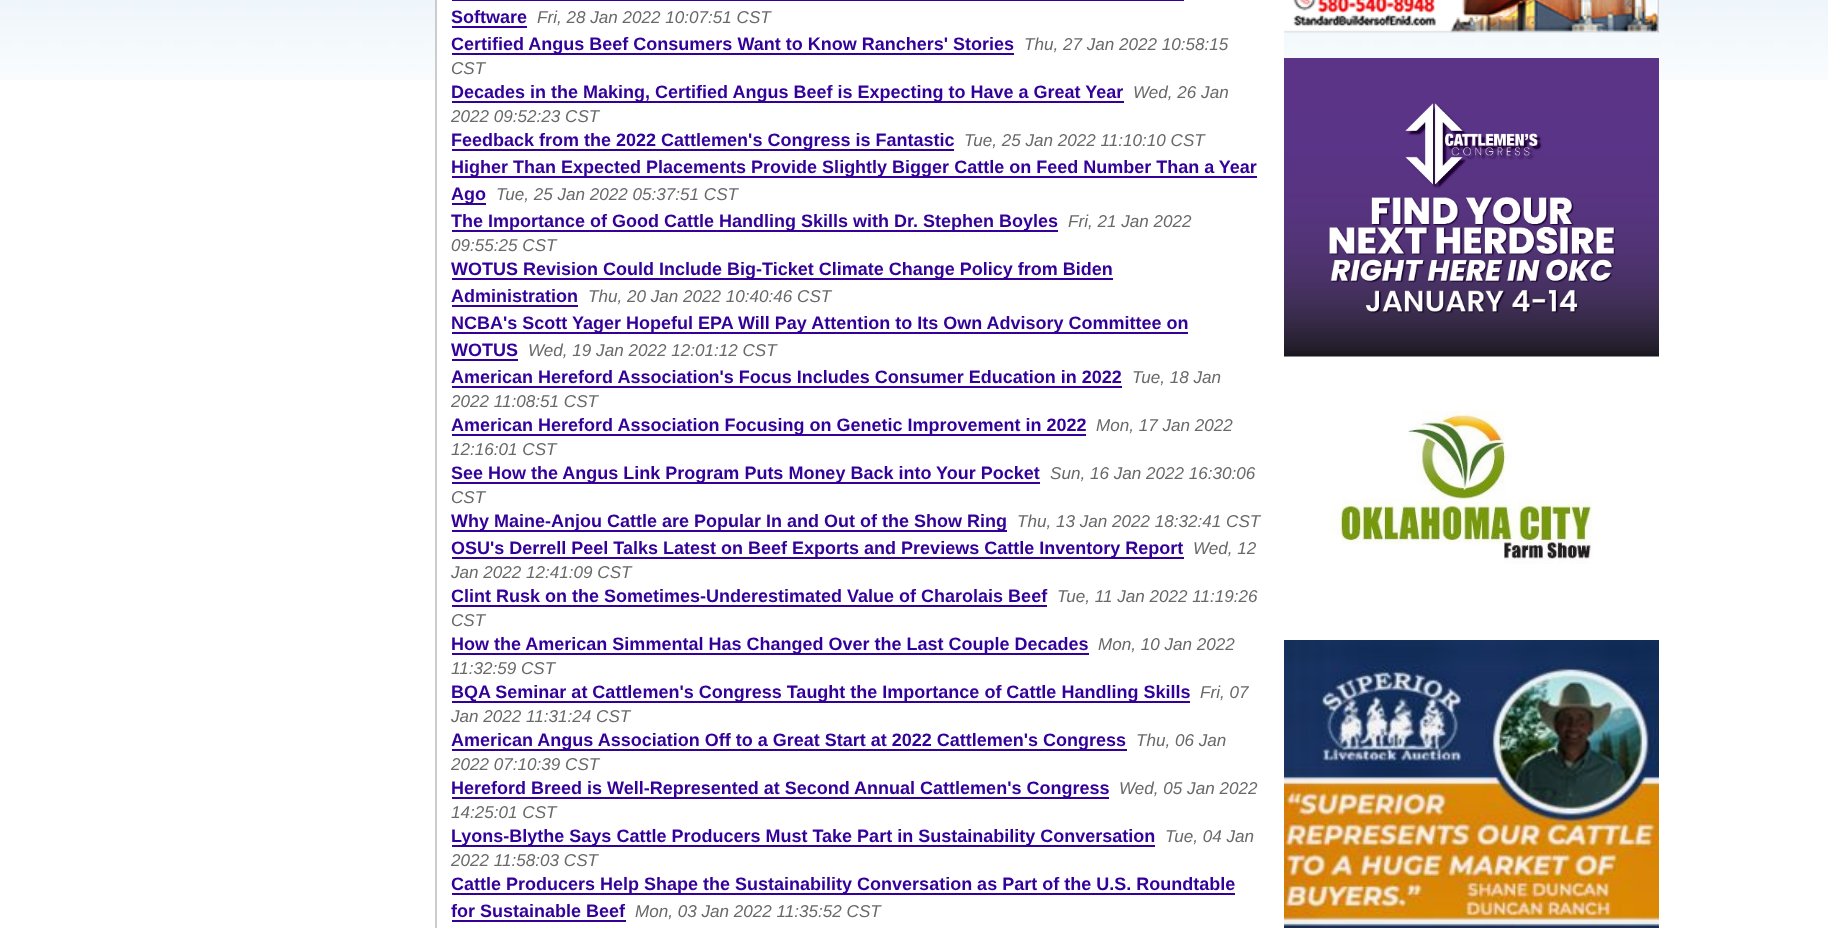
<!DOCTYPE html>
<meta charset="utf-8">
<style>body { margin: 0 } canvas { display: block }</style>
<canvas id="canvas" width="1828" height="928"></canvas>
<img id="img1" src="images/1.png" hidden>
<img id="img2" src="images/2.png" hidden>
<img id="img3" src="images/3.png" hidden>
<img id="img4" src="images/4.png" hidden>
<img id="img5" src="images/5.png" hidden>
<script>
window.onload = function () {
    const canvas = document.getElementById('canvas');
    const context = canvas.getContext('2d');
    context.miterLimit = 4;
    context.fontKerning = 'normal';

    context.fillStyle = 'rgb(255, 255, 255)';
    context.fillRect(0, 0, 1828, 928);
    context.drawImage(document.getElementById('img1'), 0, 0, 1828, 80);
    context.fillRect(437, 0, 847, 80);
    context.fillStyle = 'rgb(204, 204, 204)';
    context.fillRect(435, 0, 2, 928);
    context.fillStyle = 'rgb(51, 0, 153)';
    context.fillRect(452, 0, 732, 1);
    context.fillRect(452, 26, 75, 2);
    context.fillRect(452, 53, 562, 2);
    context.fillRect(452, 101, 672, 2);
    context.fillRect(452, 149, 502, 2);
    context.fillRect(452, 176, 805, 2);
    context.fillRect(452, 203, 34, 2);
    context.fillRect(452, 230, 606, 2);
    context.fillRect(452, 278, 661, 2);
    context.fillRect(452, 305, 126, 2);
    context.fillRect(452, 332, 736, 2);
    context.fillRect(452, 359, 66, 2);
    context.fillRect(452, 386, 670, 2);
    context.fillRect(452, 434, 634, 2);
    context.fillRect(452, 482, 588, 2);
    context.fillRect(452, 530, 555, 2);
    context.fillRect(452, 557, 732, 2);
    context.fillRect(452, 605, 595, 2);
    context.fillRect(452, 653, 637, 2);
    context.fillRect(452, 701, 738, 2);
    context.fillRect(452, 749, 675, 2);
    context.fillRect(452, 797, 657, 2);
    context.fillRect(452, 845, 703, 2);
    context.fillRect(452, 893, 783, 2);
    context.fillRect(452, 920, 174, 2);
    context.drawImage(document.getElementById('img2'), 1284, 0, 375, 33);
    context.drawImage(document.getElementById('img3'), 1284, 58, 375, 299);
    context.drawImage(document.getElementById('img4'), 1330, 410, 263, 154);
    context.drawImage(document.getElementById('img5'), 1284, 640, 375, 288);
    context.font = 'bold 18px Liberation Sans';
    context.fillText('Software', 451, 23);
    context.font = 'italic 17.1px Liberation Sans';
    context.fillStyle = 'rgb(105, 105, 105)';
    context.fillText('Fri, 28 Jan 2022 10:07:51 CST', 537, 23);
    context.font = 'bold 18px Liberation Sans';
    context.fillStyle = 'rgb(51, 0, 153)';
    context.fillText('Certified Angus Beef Consumers Want to Know Ranchers\' Stories', 451, 50);
    context.font = 'italic 17.1px Liberation Sans';
    context.fillStyle = 'rgb(105, 105, 105)';
    context.fillText('Thu, 27 Jan 2022 10:58:15', 1024, 50);
    context.fillText('CST', 451, 74);
    context.font = 'bold 18px Liberation Sans';
    context.fillStyle = 'rgb(51, 0, 153)';
    context.fillText('Decades in the Making, Certified Angus Beef is Expecting to Have a Great Year', 451, 98);
    context.font = 'italic 17.1px Liberation Sans';
    context.fillStyle = 'rgb(105, 105, 105)';
    context.fillText('Wed, 26 Jan', 1133, 98);
    context.fillText('2022 09:52:23 CST', 451, 122);
    context.font = 'bold 18px Liberation Sans';
    context.fillStyle = 'rgb(51, 0, 153)';
    context.fillText('Feedback from the 2022 Cattlemen\'s Congress is Fantastic', 451, 146);
    context.font = 'italic 17.1px Liberation Sans';
    context.fillStyle = 'rgb(105, 105, 105)';
    context.fillText('Tue, 25 Jan 2022 11:10:10 CST', 964, 146);
    context.font = 'bold 18px Liberation Sans';
    context.fillStyle = 'rgb(51, 0, 153)';
    context.fillText('Higher Than Expected Placements Provide Slightly Bigger Cattle on Feed Number Than a Year', 451, 173);
    context.fillText('Ago', 451, 200);
    context.font = 'italic 17.1px Liberation Sans';
    context.fillStyle = 'rgb(105, 105, 105)';
    context.fillText('Tue, 25 Jan 2022 05:37:51 CST', 496, 200);
    context.font = 'bold 18px Liberation Sans';
    context.fillStyle = 'rgb(51, 0, 153)';
    context.fillText('The Importance of Good Cattle Handling Skills with Dr. Stephen Boyles', 451, 227);
    context.font = 'italic 17.1px Liberation Sans';
    context.fillStyle = 'rgb(105, 105, 105)';
    context.fillText('Fri, 21 Jan 2022', 1068, 227);
    context.fillText('09:55:25 CST', 451, 251);
    context.font = 'bold 18px Liberation Sans';
    context.fillStyle = 'rgb(51, 0, 153)';
    context.fillText('WOTUS Revision Could Include Big-Ticket Climate Change Policy from Biden', 451, 275);
    context.fillText('Administration', 451, 302);
    context.font = 'italic 17.1px Liberation Sans';
    context.fillStyle = 'rgb(105, 105, 105)';
    context.fillText('Thu, 20 Jan 2022 10:40:46 CST', 588, 302);
    context.font = 'bold 18px Liberation Sans';
    context.fillStyle = 'rgb(51, 0, 153)';
    context.fillText('NCBA\'s Scott Yager Hopeful EPA Will Pay Attention to Its Own Advisory Committee on', 451, 329);
    context.fillText('WOTUS', 451, 356);
    context.font = 'italic 17.1px Liberation Sans';
    context.fillStyle = 'rgb(105, 105, 105)';
    context.fillText('Wed, 19 Jan 2022 12:01:12 CST', 528, 356);
    context.font = 'bold 18px Liberation Sans';
    context.fillStyle = 'rgb(51, 0, 153)';
    context.fillText('American Hereford Association\'s Focus Includes Consumer Education in 2022', 451, 383);
    context.font = 'italic 17.1px Liberation Sans';
    context.fillStyle = 'rgb(105, 105, 105)';
    context.fillText('Tue, 18 Jan', 1132, 383);
    context.fillText('2022 11:08:51 CST', 451, 407);
    context.font = 'bold 18px Liberation Sans';
    context.fillStyle = 'rgb(51, 0, 153)';
    context.fillText('American Hereford Association Focusing on Genetic Improvement in 2022', 451, 431);
    context.font = 'italic 17.1px Liberation Sans';
    context.fillStyle = 'rgb(105, 105, 105)';
    context.fillText('Mon, 17 Jan 2022', 1096, 431);
    context.fillText('12:16:01 CST', 451, 455);
    context.font = 'bold 18px Liberation Sans';
    context.fillStyle = 'rgb(51, 0, 153)';
    context.fillText('See How the Angus Link Program Puts Money Back into Your Pocket', 451, 479);
    context.font = 'italic 17.1px Liberation Sans';
    context.fillStyle = 'rgb(105, 105, 105)';
    context.fillText('Sun, 16 Jan 2022 16:30:06', 1050, 479);
    context.fillText('CST', 451, 503);
    context.font = 'bold 18px Liberation Sans';
    context.fillStyle = 'rgb(51, 0, 153)';
    context.fillText('Why Maine-Anjou Cattle are Popular In and Out of the Show Ring', 451, 527);
    context.font = 'italic 17.1px Liberation Sans';
    context.fillStyle = 'rgb(105, 105, 105)';
    context.fillText('Thu, 13 Jan 2022 18:32:41 CST', 1017, 527);
    context.font = 'bold 18px Liberation Sans';
    context.fillStyle = 'rgb(51, 0, 153)';
    context.fillText('OSU\'s Derrell Peel Talks Latest on Beef Exports and Previews Cattle Inventory Report', 451, 554);
    context.font = 'italic 17.1px Liberation Sans';
    context.fillStyle = 'rgb(105, 105, 105)';
    context.fillText('Wed, 12', 1193, 554);
    context.fillText('Jan 2022 12:41:09 CST', 451, 578);
    context.font = 'bold 18px Liberation Sans';
    context.fillStyle = 'rgb(51, 0, 153)';
    context.fillText('Clint Rusk on the Sometimes-Underestimated Value of Charolais Beef', 451, 602);
    context.font = 'italic 17.1px Liberation Sans';
    context.fillStyle = 'rgb(105, 105, 105)';
    context.fillText('Tue, 11 Jan 2022 11:19:26', 1057, 602);
    context.fillText('CST', 451, 626);
    context.font = 'bold 18px Liberation Sans';
    context.fillStyle = 'rgb(51, 0, 153)';
    context.fillText('How the American Simmental Has Changed Over the Last Couple Decades', 451, 650);
    context.font = 'italic 17.1px Liberation Sans';
    context.fillStyle = 'rgb(105, 105, 105)';
    context.fillText('Mon, 10 Jan 2022', 1098, 650);
    context.fillText('11:32:59 CST', 451, 674);
    context.font = 'bold 18px Liberation Sans';
    context.fillStyle = 'rgb(51, 0, 153)';
    context.fillText('BQA Seminar at Cattlemen\'s Congress Taught the Importance of Cattle Handling Skills', 451, 698);
    context.font = 'italic 17.1px Liberation Sans';
    context.fillStyle = 'rgb(105, 105, 105)';
    context.fillText('Fri, 07', 1200, 698);
    context.fillText('Jan 2022 11:31:24 CST', 451, 722);
    context.font = 'bold 18px Liberation Sans';
    context.fillStyle = 'rgb(51, 0, 153)';
    context.fillText('American Angus Association Off to a Great Start at 2022 Cattlemen\'s Congress', 451, 746);
    context.font = 'italic 17.1px Liberation Sans';
    context.fillStyle = 'rgb(105, 105, 105)';
    context.fillText('Thu, 06 Jan', 1136, 746);
    context.fillText('2022 07:10:39 CST', 451, 770);
    context.font = 'bold 18px Liberation Sans';
    context.fillStyle = 'rgb(51, 0, 153)';
    context.fillText('Hereford Breed is Well-Represented at Second Annual Cattlemen\'s Congress', 451, 794);
    context.font = 'italic 17.1px Liberation Sans';
    context.fillStyle = 'rgb(105, 105, 105)';
    context.fillText('Wed, 05 Jan 2022', 1119, 794);
    context.fillText('14:25:01 CST', 451, 818);
    context.font = 'bold 18px Liberation Sans';
    context.fillStyle = 'rgb(51, 0, 153)';
    context.fillText('Lyons-Blythe Says Cattle Producers Must Take Part in Sustainability Conversation', 451, 842);
    context.font = 'italic 17.1px Liberation Sans';
    context.fillStyle = 'rgb(105, 105, 105)';
    context.fillText('Tue, 04 Jan', 1165, 842);
    context.fillText('2022 11:58:03 CST', 451, 866);
    context.font = 'bold 18px Liberation Sans';
    context.fillStyle = 'rgb(51, 0, 153)';
    context.fillText('Cattle Producers Help Shape the Sustainability Conversation as Part of the U.S. Roundtable', 451, 890);
    context.fillText('for Sustainable Beef', 451, 917);
    context.font = 'italic 17.1px Liberation Sans';
    context.fillStyle = 'rgb(105, 105, 105)';
    context.fillText('Mon, 03 Jan 2022 11:35:52 CST', 635, 917);
};
</script>
